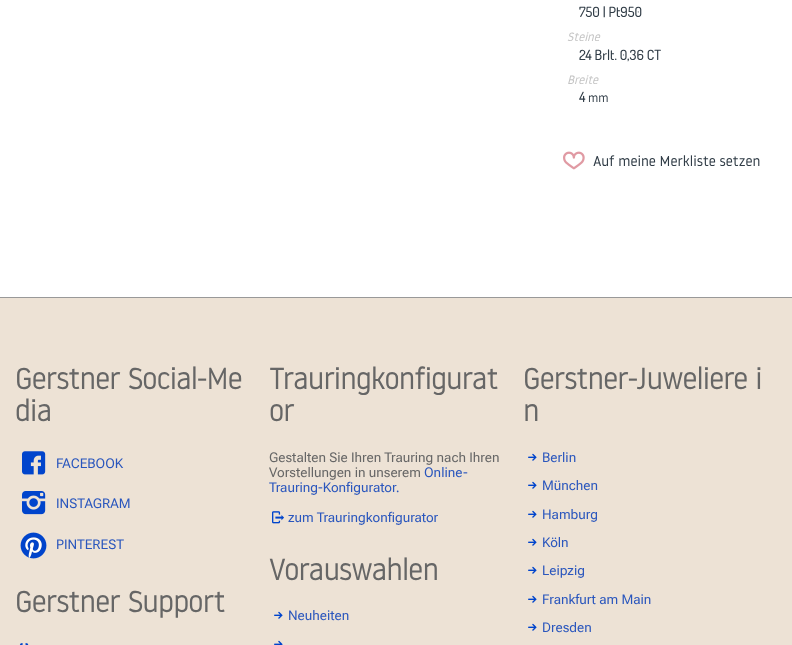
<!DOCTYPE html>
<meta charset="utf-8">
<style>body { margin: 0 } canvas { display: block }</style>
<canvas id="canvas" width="792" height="645"></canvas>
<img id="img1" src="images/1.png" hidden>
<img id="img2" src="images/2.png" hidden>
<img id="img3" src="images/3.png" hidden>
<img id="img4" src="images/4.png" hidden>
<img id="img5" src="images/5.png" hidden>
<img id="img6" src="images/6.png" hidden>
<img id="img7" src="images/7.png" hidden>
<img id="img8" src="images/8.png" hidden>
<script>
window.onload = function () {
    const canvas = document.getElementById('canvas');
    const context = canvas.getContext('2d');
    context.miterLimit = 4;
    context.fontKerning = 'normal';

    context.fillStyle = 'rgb(255, 255, 255)';
    context.fillRect(0, 0, 792, 645);
    context.drawImage(document.getElementById('img1'), 563, 151, 22, 19);
    context.fillStyle = 'rgb(237, 226, 213)';
    context.fillRect(0, 298, 792, 347);
    context.fillStyle = 'rgb(153, 153, 153)';
    context.fillRect(0, 297, 792, 1);
    context.drawImage(document.getElementById('img2'), 22, 451, 24, 24);
    context.drawImage(document.getElementById('img3'), 22, 491, 24, 24);
    context.drawImage(document.getElementById('img4'), 20, 532, 27, 27);
    context.drawImage(document.getElementById('img5'), 19, 643, 10, 2);
    context.drawImage(document.getElementById('img6'), 272, 511, 12, 13);
    context.drawImage(document.getElementById('img7'), 274, 611, 9, 8);
    context.drawImage(document.getElementById('img8'), 274, 640, 9, 5);
    context.drawImage(document.getElementById('img7'), 528, 453, 9, 8);
    context.drawImage(document.getElementById('img7'), 528, 481, 9, 8);
    context.drawImage(document.getElementById('img7'), 528, 510, 9, 8);
    context.drawImage(document.getElementById('img7'), 528, 538, 9, 8);
    context.drawImage(document.getElementById('img7'), 528, 566, 9, 8);
    context.drawImage(document.getElementById('img7'), 528, 595, 9, 8);
    context.drawImage(document.getElementById('img7'), 528, 623, 9, 8);
    context.font = '500 14px Dosis';
    context.fillStyle = 'rgb(49, 61, 71)';
    context.fillText('750 | Pt950', 579, 17);
    context.font = 'italic 12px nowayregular';
    context.fillStyle = 'rgb(196, 196, 196)';
    context.fillText('Steine', 567, 41);
    context.font = '500 14px Dosis';
    context.fillStyle = 'rgb(49, 61, 71)';
    context.fillText('24 Brlt. 0,36 CT', 579, 60);
    context.font = 'italic 12px nowayregular';
    context.fillStyle = 'rgb(196, 196, 196)';
    context.fillText('Breite', 567, 84);
    context.font = '500 14px Dosis';
    context.fillStyle = 'rgb(49, 61, 71)';
    context.fillText('4', 579, 102);
    context.font = '12px nowayregular';
    context.fillText('mm', 588, 102);
    context.font = '14.25px nowayregular';
    context.fillText('Auf meine Merkliste setzen', 593, 166);
    context.font = 'bold 29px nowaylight';
    context.fillStyle = 'rgb(102, 102, 102)';
    context.fillText('Gerstner Social-Me', 15, 389);
    context.fillText('dia', 15, 421);
    context.font = '13.5px Roboto Flex';
    context.fillStyle = 'rgb(42, 86, 189)';
    context.fillText('FACEBOOK', 56, 468);
    context.fillText('INSTAGRAM', 56, 508);
    context.fillText('PINTEREST', 56, 549);
    context.font = 'bold 29px nowaylight';
    context.fillStyle = 'rgb(102, 102, 102)';
    context.fillText('Gerstner Support', 15, 612);
    context.fillText('Trauringkonfigurat', 269, 389);
    context.fillText('or', 269, 421);
    context.font = '13.5px Roboto Flex';
    context.fillText('Gestalten Sie Ihren Trauring nach Ihren', 269, 462);
    context.fillText('Vorstellungen in unserem', 269, 477);
    context.fillStyle = 'rgb(42, 86, 189)';
    context.fillText('Online-', 424, 477);
    context.fillText('Trauring-Konfigurator.', 269, 492);
    context.fillText('zum Trauringkonfigurator', 288, 522);
    context.font = 'bold 29px nowaylight';
    context.fillStyle = 'rgb(102, 102, 102)';
    context.fillText('Vorauswahlen', 269, 580);
    context.font = '13.5px Roboto Flex';
    context.fillStyle = 'rgb(42, 86, 189)';
    context.fillText('Neuheiten', 288, 620);
    context.font = 'bold 29px nowaylight';
    context.fillStyle = 'rgb(102, 102, 102)';
    context.fillText('Gerstner-Juweliere i', 523, 389);
    context.fillText('n', 523, 421);
    context.font = '13.5px Roboto Flex';
    context.fillStyle = 'rgb(42, 86, 189)';
    context.fillText('Berlin', 542, 462);
    context.fillText('München', 542, 490);
    context.fillText('Hamburg', 542, 519);
    context.fillText('Köln', 542, 547);
    context.fillText('Leipzig', 542, 575);
    context.fillText('Frankfurt am Main', 542, 604);
    context.fillText('Dresden', 542, 632);
};
</script>
